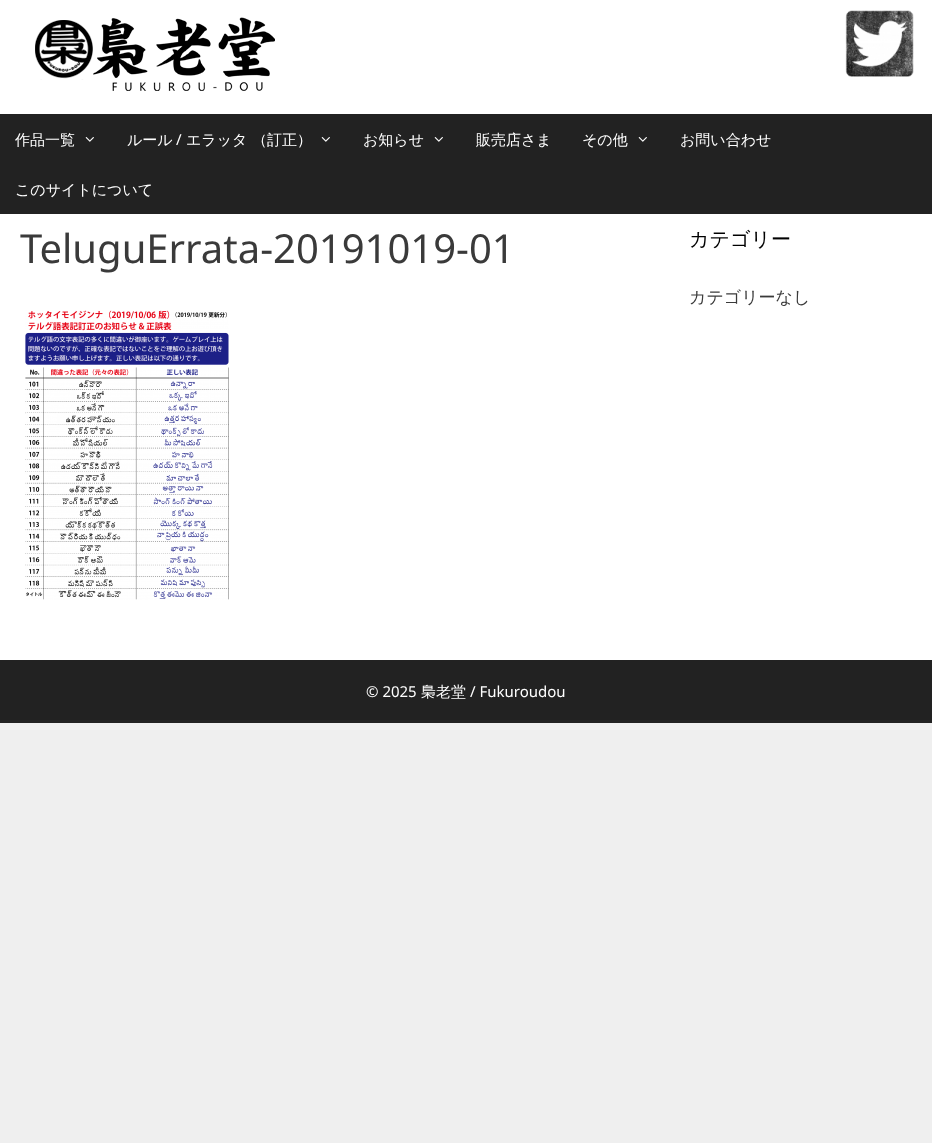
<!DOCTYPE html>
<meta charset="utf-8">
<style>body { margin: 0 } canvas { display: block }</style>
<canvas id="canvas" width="932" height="1143"></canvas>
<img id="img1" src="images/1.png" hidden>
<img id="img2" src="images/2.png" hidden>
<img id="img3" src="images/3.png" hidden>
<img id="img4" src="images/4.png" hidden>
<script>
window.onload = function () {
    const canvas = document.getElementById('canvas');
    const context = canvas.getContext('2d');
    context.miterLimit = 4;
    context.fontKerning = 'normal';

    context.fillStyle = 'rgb(239, 239, 239)';
    context.fillRect(0, 0, 932, 1143);
    context.fillStyle = 'rgb(255, 255, 255)';
    context.fillRect(0, 0, 932, 114);
    context.drawImage(document.getElementById('img1'), 35, 17, 240, 74);
    context.drawImage(document.getElementById('img2'), 845, 10, 69, 67);
    context.fillStyle = 'rgb(34, 34, 34)';
    context.fillRect(0, 114, 932, 100);
    context.drawImage(document.getElementById('img3'), 85, 137, 9, 5);
    context.drawImage(document.getElementById('img3'), 321, 137, 9, 5);
    context.drawImage(document.getElementById('img3'), 434, 137, 9, 5);
    context.drawImage(document.getElementById('img3'), 638, 137, 9, 5);
    context.fillStyle = 'rgb(255, 255, 255)';
    context.fillRect(0, 214, 932, 446);
    context.drawImage(document.getElementById('img4'), 25, 310, 204, 290);
    context.fillStyle = 'rgb(34, 34, 34)';
    context.fillRect(0, 660, 932, 63);
    context.font = '500 15px WenQuanYi Zen Hei';
    context.fillStyle = 'rgb(255, 255, 255)';
    context.fillText('作品一覧', 15, 145);
    context.fillText('ルール', 127, 145);
    context.font = '15px Noto Sans';
    context.fillText('/', 176, 145);
    context.font = '500 15px WenQuanYi Zen Hei';
    context.fillText('エラッタ （訂正）', 186, 145);
    context.fillText('お知らせ', 363, 145);
    context.fillText('販売店さま', 476, 145);
    context.fillText('その他', 582, 145);
    context.fillText('お問い合わせ', 680, 145);
    context.fillText('このサイトについて', 15, 195);
    context.font = '40px Noto Sans';
    context.fillStyle = 'rgb(58, 58, 58)';
    context.fillText('TeluguErrata-20191019-01', 20, 263);
    context.font = '500 20px WenQuanYi Zen Hei';
    context.fillStyle = 'rgb(0, 0, 0)';
    context.fillText('カテゴリー', 689, 246);
    context.font = '500 17px WenQuanYi Zen Hei';
    context.fillStyle = 'rgb(58, 58, 58)';
    context.fillText('カテゴリーなし', 689, 303);
    context.font = '15px Noto Sans';
    context.fillStyle = 'rgb(255, 255, 255)';
    context.fillText('© 2025', 366, 697);
    context.font = '500 15px WenQuanYi Zen Hei';
    context.fillText('梟老堂', 421, 697);
    context.font = '15px Noto Sans';
    context.fillText('/ Fukuroudou', 470, 697);
};
</script>
